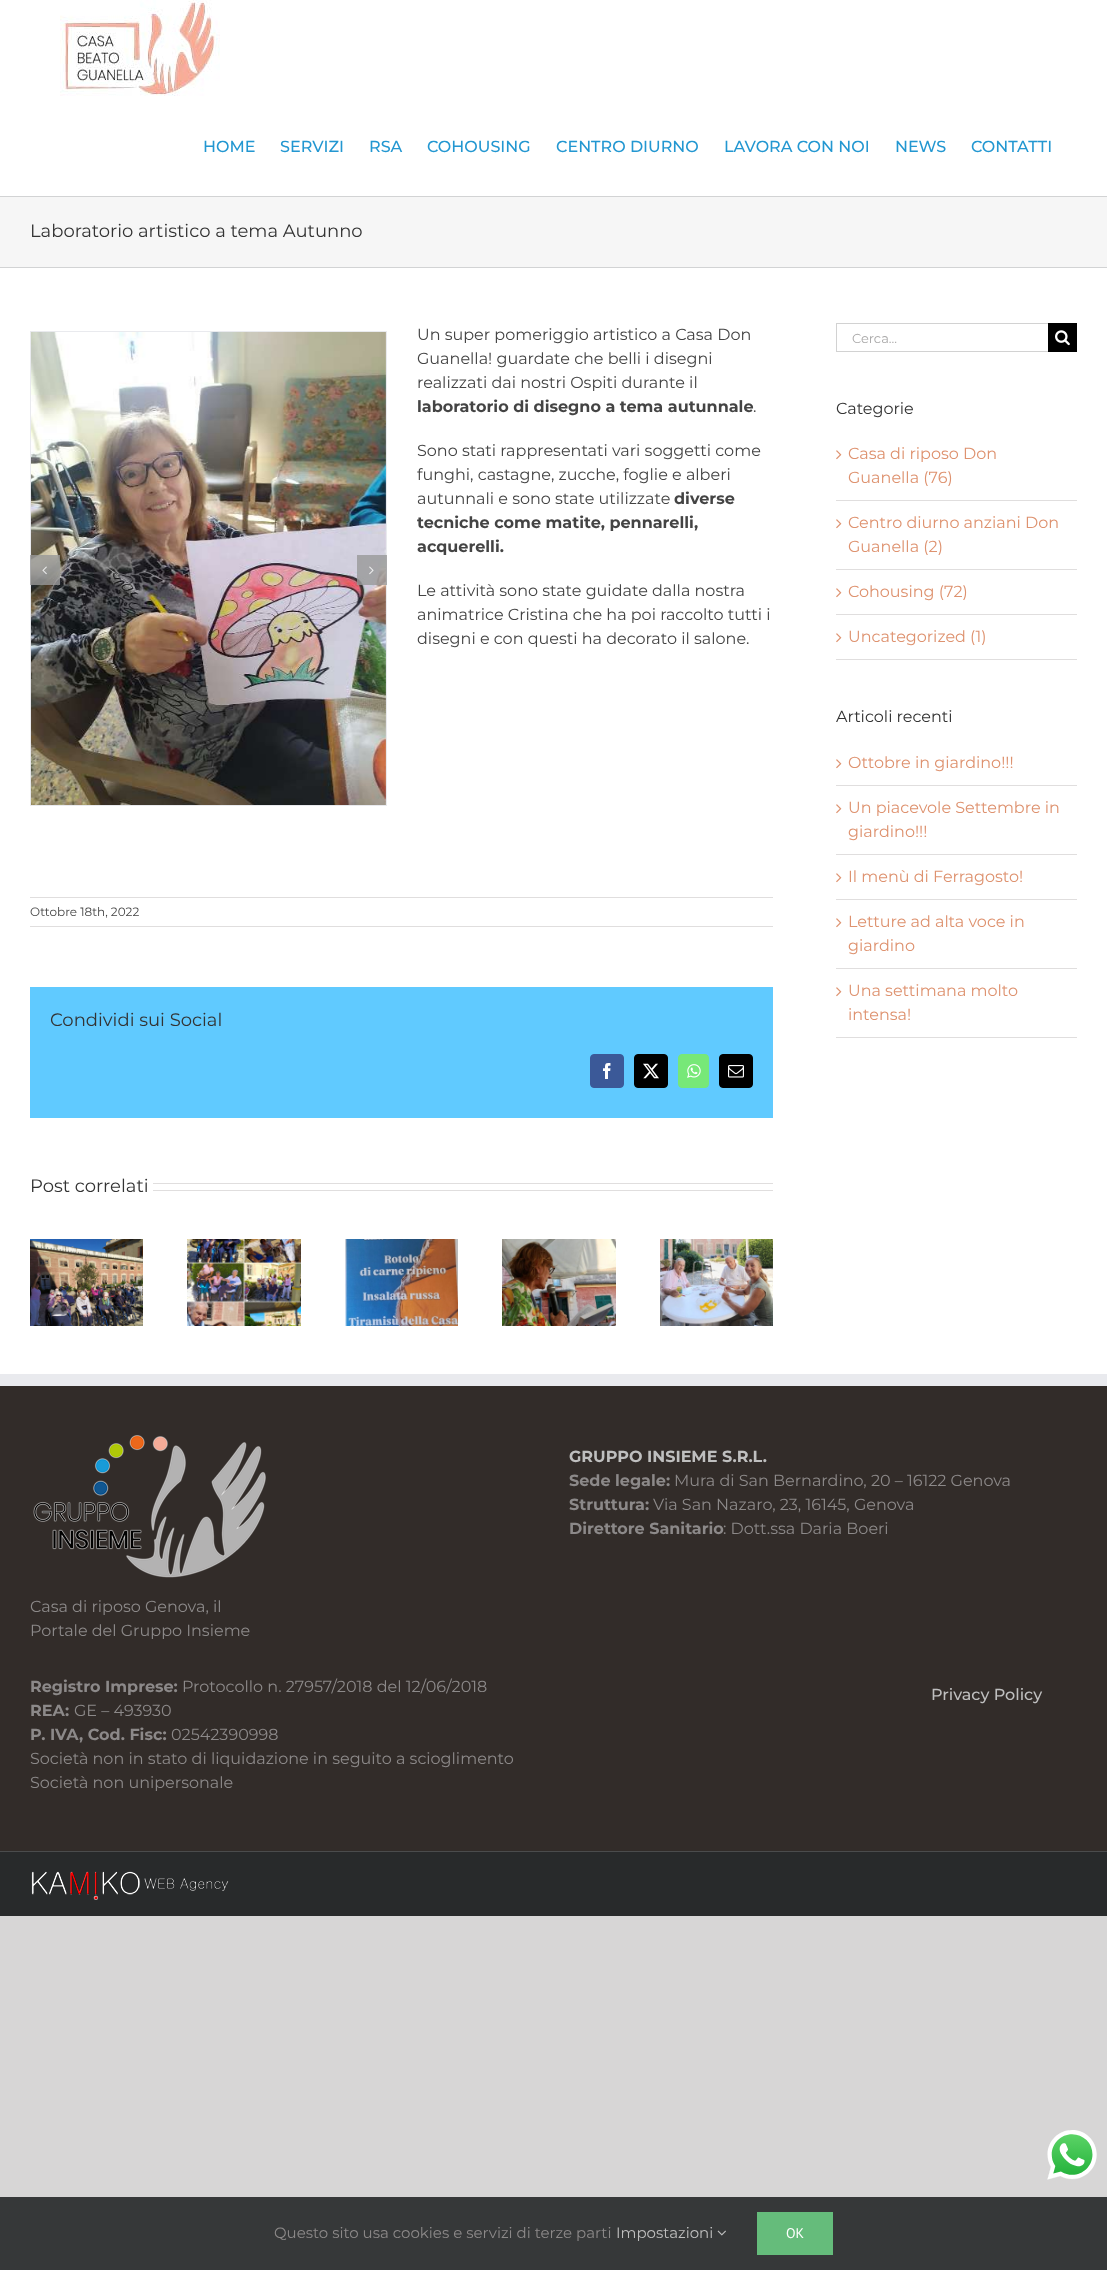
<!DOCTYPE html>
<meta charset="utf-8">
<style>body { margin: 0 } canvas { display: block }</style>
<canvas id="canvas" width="1107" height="2270"></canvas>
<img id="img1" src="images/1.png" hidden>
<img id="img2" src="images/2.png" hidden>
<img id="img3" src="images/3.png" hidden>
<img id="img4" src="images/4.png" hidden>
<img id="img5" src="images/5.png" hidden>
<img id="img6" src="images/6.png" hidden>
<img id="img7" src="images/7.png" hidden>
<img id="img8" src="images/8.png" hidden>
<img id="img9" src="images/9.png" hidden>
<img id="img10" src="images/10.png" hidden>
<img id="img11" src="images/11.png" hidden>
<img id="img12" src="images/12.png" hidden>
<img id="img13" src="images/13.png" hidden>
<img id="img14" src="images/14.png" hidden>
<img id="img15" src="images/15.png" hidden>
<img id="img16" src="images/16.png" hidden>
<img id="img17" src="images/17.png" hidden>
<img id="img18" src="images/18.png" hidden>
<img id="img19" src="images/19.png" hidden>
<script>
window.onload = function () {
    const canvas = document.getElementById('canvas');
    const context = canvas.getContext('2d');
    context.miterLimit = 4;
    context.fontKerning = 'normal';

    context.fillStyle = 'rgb(215, 214, 214)';
    context.fillRect(0, 0, 1107, 2270);
    context.fillStyle = 'rgb(255, 255, 255)';
    context.fillRect(0, 0, 1107, 1374);
    context.drawImage(document.getElementById('img1'), 60, 0, 160, 96);
    context.fillStyle = 'rgb(246, 246, 246)';
    context.fillRect(0, 197, 1107, 70);
    context.fillStyle = 'rgb(210, 211, 212)';
    context.fillRect(0, 196, 1107, 1);
    context.fillRect(0, 267, 1107, 1);
    context.strokeStyle = 'rgb(233, 234, 238)';
    context.strokeRect(30.5, 331.5, 356, 474);
    context.drawImage(document.getElementById('img2'), 31, 332, 355, 473);
    context.fillStyle = 'rgba(153, 153, 153, 0.8)';
    context.fillRect(30, 555, 30, 30);
    context.drawImage(document.getElementById('img3'), 42, 566, 5, 9);
    context.fillRect(357, 555, 30, 30);
    context.drawImage(document.getElementById('img4'), 369, 566, 5, 9);
    context.fillStyle = 'rgb(224, 222, 222)';
    context.fillRect(30, 897, 743, 1);
    context.fillRect(30, 926, 743, 1);
    context.fillStyle = 'rgb(96, 202, 255)';
    context.fillRect(30, 987, 743, 131);
    context.fillStyle = 'rgb(59, 89, 152)';
    context.beginPath();
    context.roundRect(590.5, 1054.5, 33, 33, 3.5);
    context.fill();
    context.strokeStyle = 'rgb(59, 89, 152)';
    context.stroke();
    context.drawImage(document.getElementById('img5'), 603, 1063, 8, 16);
    context.fillStyle = 'rgb(0, 0, 0)';
    context.beginPath();
    context.roundRect(634.5, 1054.5, 33, 33, 3.5);
    context.fill();
    context.strokeStyle = 'rgb(0, 0, 0)';
    context.stroke();
    context.drawImage(document.getElementById('img6'), 643, 1063, 16, 16);
    context.fillStyle = 'rgb(119, 232, 120)';
    context.beginPath();
    context.roundRect(678.5, 1054.5, 30, 33, 3.5);
    context.fill();
    context.strokeStyle = 'rgb(119, 232, 120)';
    context.stroke();
    context.drawImage(document.getElementById('img7'), 687, 1064, 14, 14);
    context.fillStyle = 'rgb(0, 0, 0)';
    context.beginPath();
    context.roundRect(719.5, 1054.5, 33, 33, 3.5);
    context.fill();
    context.strokeStyle = 'rgb(0, 0, 0)';
    context.stroke();
    context.drawImage(document.getElementById('img8'), 728, 1065, 16, 13);
    context.fillStyle = 'rgb(224, 222, 222)';
    context.fillRect(153, 1183, 620, 1);
    context.fillRect(153, 1190, 620, 1);
    context.drawImage(document.getElementById('img9'), 30, 1239, 113, 87);
    context.drawImage(document.getElementById('img10'), 187, 1239, 114, 87);
    context.drawImage(document.getElementById('img11'), 345, 1239, 113, 87);
    context.drawImage(document.getElementById('img12'), 502, 1239, 114, 87);
    context.drawImage(document.getElementById('img13'), 660, 1239, 113, 87);
    context.fillStyle = 'rgb(210, 210, 210)';
    context.fillRect(836, 323, 212, 1);
    context.fillRect(836, 351, 212, 1);
    context.fillRect(836, 323, 1, 29);
    context.fillStyle = 'rgb(0, 0, 0)';
    context.fillRect(1048, 323, 29, 29);
    context.drawImage(document.getElementById('img14'), 1055, 330, 15, 16);
    context.fillStyle = 'rgb(224, 222, 222)';
    context.fillRect(836, 500, 241, 1);
    context.drawImage(document.getElementById('img15'), 836, 450, 6, 10);
    context.fillRect(836, 569, 241, 1);
    context.drawImage(document.getElementById('img15'), 836, 519, 6, 10);
    context.fillRect(836, 614, 241, 1);
    context.drawImage(document.getElementById('img15'), 836, 588, 6, 10);
    context.fillRect(836, 659, 241, 1);
    context.drawImage(document.getElementById('img15'), 836, 633, 6, 10);
    context.fillRect(836, 785, 241, 1);
    context.drawImage(document.getElementById('img15'), 836, 759, 6, 10);
    context.fillRect(836, 854, 241, 1);
    context.drawImage(document.getElementById('img15'), 836, 804, 6, 10);
    context.fillRect(836, 899, 241, 1);
    context.drawImage(document.getElementById('img15'), 836, 873, 6, 10);
    context.fillRect(836, 968, 241, 1);
    context.drawImage(document.getElementById('img15'), 836, 918, 6, 10);
    context.fillRect(836, 1037, 241, 1);
    context.drawImage(document.getElementById('img15'), 836, 987, 6, 10);
    context.fillStyle = 'rgb(50, 44, 41)';
    context.fillRect(0, 1386, 1107, 465);
    context.fillStyle = 'rgb(233, 234, 238)';
    context.fillRect(0, 1374, 1107, 12);
    context.drawImage(document.getElementById('img16'), 33, 1435, 233, 143);
    context.fillStyle = 'rgb(40, 42, 43)';
    context.fillRect(0, 1852, 1107, 64);
    context.fillStyle = 'rgb(75, 76, 77)';
    context.fillRect(0, 1851, 1107, 1);
    context.drawImage(document.getElementById('img17'), 31, 1871, 198, 29);
    context.drawImage(document.getElementById('img18'), 1047, 2130, 50, 50);
    context.fillStyle = 'rgb(54, 56, 57)';
    context.fillRect(0, 2197, 1107, 73);
    context.drawImage(document.getElementById('img19'), 717, 2230, 9, 6);
    context.fillStyle = 'rgb(101, 188, 123)';
    context.fillRect(757, 2212, 76, 43);
    context.font = '500 16px Montserrat';
    context.fillStyle = 'rgb(35, 151, 209)';
    context.fillText('HOME', 203, 152);
    context.fillText('SERVIZI', 280, 152);
    context.fillText('RSA', 369, 152);
    context.fillText('COHOUSING', 427, 152);
    context.fillText('CENTRO DIURNO', 556, 152);
    context.fillText('LAVORA CON NOI', 724, 152);
    context.fillText('NEWS', 895, 152);
    context.fillText('CONTATTI', 971, 152);
    context.font = '18px Montserrat';
    context.fillStyle = 'rgb(51, 51, 51)';
    context.fillText('Laboratorio artistico a tema Autunno', 30, 237);
    context.font = '16px Montserrat';
    context.fillStyle = 'rgb(68, 68, 68)';
    context.fillText('Un super pomeriggio artistico a Casa Don', 417, 340);
    context.fillText('Guanella! guardate che belli i disegni', 417, 364);
    context.fillText('realizzati dai nostri Ospiti durante il', 417, 388);
    context.font = 'bold 16px Montserrat';
    context.fillText('laboratorio di disegno a tema autunnale', 417, 412);
    context.font = '16px Montserrat';
    context.fillText('.', 753, 412);
    context.fillText('Sono stati rappresentati vari soggetti come', 417, 456);
    context.fillText('funghi, castagne, zucche, foglie e alberi', 417, 480);
    context.fillText('autunnali e sono state utilizzate', 417, 504);
    context.font = 'bold 16px Montserrat';
    context.fillText('diverse', 674, 504);
    context.fillText('tecniche come matite, pennarelli,', 417, 528);
    context.fillText('acquerelli.', 417, 552);
    context.font = '16px Montserrat';
    context.fillText('Le attività sono state guidate dalla nostra', 417, 596);
    context.fillText('animatrice Cristina che ha poi raccolto tutti i', 417, 620);
    context.fillText('disegni e con questi ha decorato il salone.', 417, 644);
    context.font = '12px Montserrat';
    context.fillText('Ottobre 18th, 2022', 30, 916);
    context.font = '18px Montserrat';
    context.fillStyle = 'rgb(51, 51, 51)';
    context.fillText('Condividi sui Social', 50, 1026);
    context.fillText('Post correlati', 30, 1192);
    context.font = '13px Montserrat';
    context.fillStyle = 'rgb(170, 169, 169)';
    context.fillText('Cerca...', 852, 343);
    context.font = '16px Montserrat';
    context.fillStyle = 'rgb(51, 51, 51)';
    context.fillText('Categorie', 836, 414);
    context.fillStyle = 'rgb(222, 146, 111)';
    context.fillText('Casa di riposo Don', 848, 459);
    context.fillText('Guanella (76)', 848, 483);
    context.fillText('Centro diurno anziani Don', 848, 528);
    context.fillText('Guanella (2)', 848, 552);
    context.fillText('Cohousing (72)', 848, 597);
    context.fillText('Uncategorized (1)', 848, 642);
    context.fillStyle = 'rgb(51, 51, 51)';
    context.fillText('Articoli recenti', 836, 722);
    context.fillStyle = 'rgb(222, 146, 111)';
    context.fillText('Ottobre in giardino!!!', 848, 768);
    context.fillText('Un piacevole Settembre in', 848, 813);
    context.fillText('giardino!!!', 848, 837);
    context.fillText('Il menù di Ferragosto!', 848, 882);
    context.fillText('Letture ad alta voce in', 848, 927);
    context.fillText('giardino', 848, 951);
    context.fillText('Una settimana molto', 848, 996);
    context.fillText('intensa!', 848, 1020);
    context.font = 'bold 16px Montserrat';
    context.fillStyle = 'rgb(191, 191, 191)';
    context.fillText('GRUPPO INSIEME S.R.L.', 569, 1462);
    context.fillStyle = 'rgb(140, 137, 137)';
    context.fillText('Sede legale:', 569, 1486);
    context.font = '16px Montserrat';
    context.fillText('Mura di San Bernardino, 20 – 16122 Genova', 674, 1486);
    context.font = 'bold 16px Montserrat';
    context.fillText('Struttura:', 569, 1510);
    context.font = '16px Montserrat';
    context.fillText('Via San Nazaro, 23, 16145, Genova', 653, 1510);
    context.font = 'bold 16px Montserrat';
    context.fillText('Direttore Sanitario', 569, 1534);
    context.font = '16px Montserrat';
    context.fillText(': Dott.ssa Daria Boeri', 723, 1534);
    context.fillText('Casa di riposo Genova, il', 30, 1612);
    context.fillText('Portale del Gruppo Insieme', 30, 1636);
    context.font = 'bold 16px Montserrat';
    context.fillText('Registro Imprese:', 30, 1692);
    context.font = '16px Montserrat';
    context.fillText('Protocollo n. 27957/2018 del 12/06/2018', 182, 1692);
    context.font = 'bold 16px Montserrat';
    context.fillText('REA:', 30, 1716);
    context.font = '16px Montserrat';
    context.fillText('GE – 493930', 74, 1716);
    context.font = 'bold 16px Montserrat';
    context.fillText('P. IVA, Cod. Fisc:', 30, 1740);
    context.font = '16px Montserrat';
    context.fillText('02542390998', 171, 1740);
    context.fillText('Società non in stato di liquidazione in seguito a scioglimento', 30, 1764);
    context.fillText('Società non unipersonale', 30, 1788);
    context.font = '500 16px Montserrat';
    context.fillStyle = 'rgb(191, 191, 191)';
    context.fillText('Privacy Policy', 931, 1700);
    context.font = '15px Montserrat';
    context.fillStyle = 'rgb(140, 137, 137)';
    context.fillText('Questo sito usa cookies e servizi di terze parti', 274, 2238);
    context.fillStyle = 'rgb(191, 191, 191)';
    context.fillText('Impostazioni', 616, 2238);
    context.font = '14px PT Sans';
    context.fillStyle = 'rgb(255, 255, 255)';
    context.fillText('OK', 786, 2238);
};
</script>
